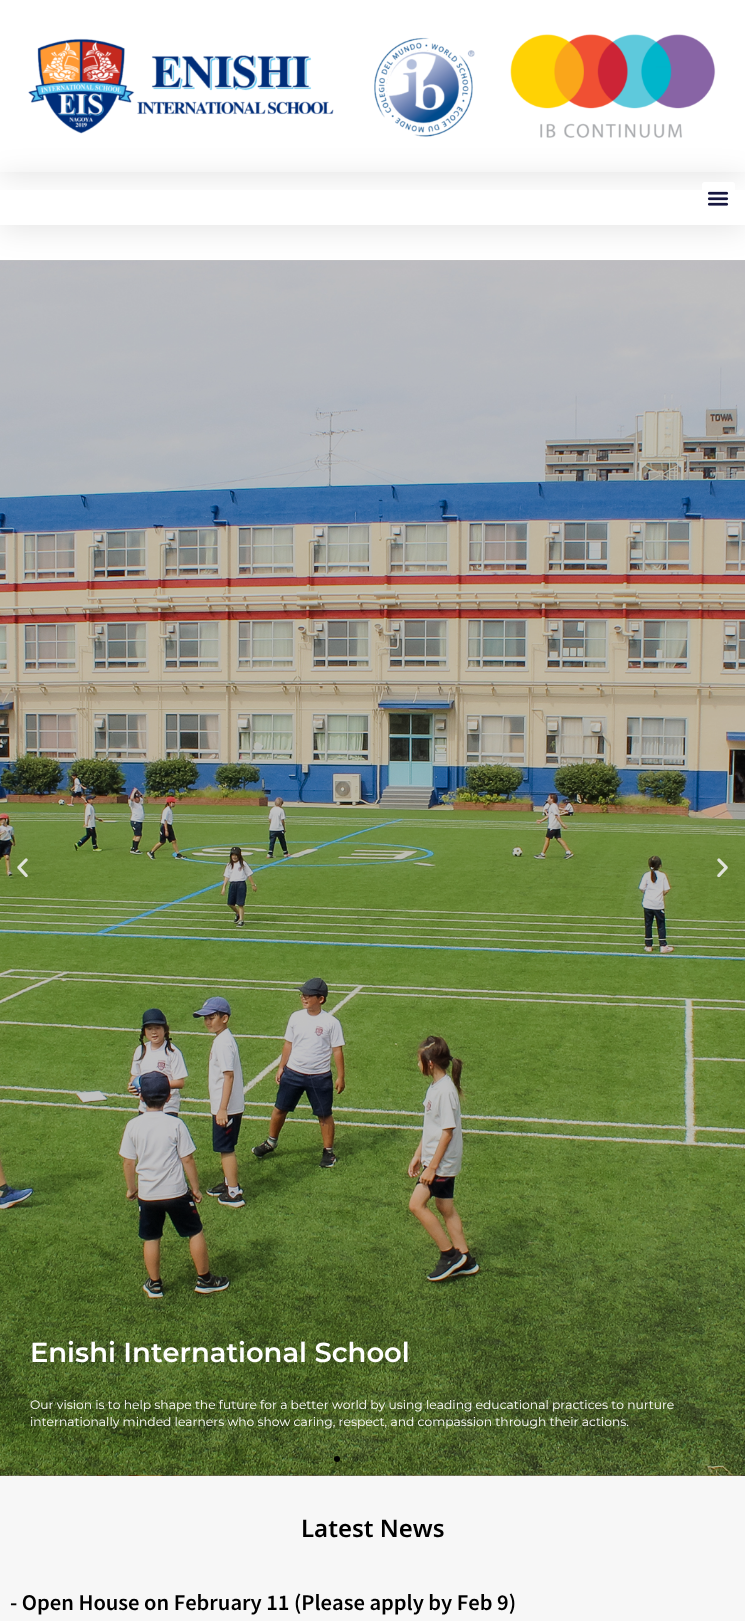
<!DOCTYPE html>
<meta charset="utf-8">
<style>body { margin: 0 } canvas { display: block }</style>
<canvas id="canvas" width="745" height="1621"></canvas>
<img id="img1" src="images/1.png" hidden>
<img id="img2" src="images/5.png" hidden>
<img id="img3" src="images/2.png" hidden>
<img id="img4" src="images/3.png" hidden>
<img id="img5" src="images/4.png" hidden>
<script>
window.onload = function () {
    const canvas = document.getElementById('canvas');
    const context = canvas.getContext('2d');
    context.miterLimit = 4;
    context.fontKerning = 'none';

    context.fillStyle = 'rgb(255, 255, 255)';
    context.fillRect(0, 0, 745, 1621);
    context.save();
    context.beginPath();
    context.rect(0, 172, 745, 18);
    context.clip();
    context.fillStyle = 'rgba(0, 0, 0, 0.1)';
    context.filter = 'blur(15px)';
    context.beginPath();
    context.rect(0, 5, 745, 172);
    context.fill();
    context.filter = 'none';
    context.restore();
    context.drawImage(document.getElementById('img1'), 28, 34, 688, 104);
    context.drawImage(document.getElementById('img2'), 0, 260, 745, 1216);
    context.save();
    context.beginPath();
    context.moveTo(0, 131);
    context.lineTo(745, 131);
    context.lineTo(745, 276);
    context.lineTo(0, 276);
    context.closePath();
    context.moveTo(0, 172);
    context.lineTo(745, 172);
    context.lineTo(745, 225);
    context.lineTo(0, 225);
    context.closePath();
    context.clip('evenodd');
    context.fillStyle = 'rgba(0, 0, 0, 0.1)';
    context.filter = 'blur(15px)';
    context.beginPath();
    context.rect(0, 177, 745, 53);
    context.fill();
    context.filter = 'none';
    context.restore();
    context.beginPath();
    context.roundRect(702, 182, 33, 33, 3);
    context.fill();
    context.drawImage(document.getElementById('img3'), 707, 191, 22, 15);
    context.drawImage(document.getElementById('img4'), 17, 858, 11, 20);
    context.drawImage(document.getElementById('img5'), 717, 858, 11, 20);
    context.fillStyle = 'rgb(0, 0, 0)';
    context.beginPath();
    context.arc(337, 1459, 3, 0, 2 * Math.PI);
    context.fill();
    context.fillStyle = 'rgba(0, 0, 0, 0.2)';
    context.beginPath();
    context.arc(355, 1459, 3, 0, 2 * Math.PI);
    context.fill();
    context.beginPath();
    context.arc(373, 1459, 3, 0, 2 * Math.PI);
    context.fill();
    context.beginPath();
    context.arc(391, 1459, 3, 0, 2 * Math.PI);
    context.fill();
    context.beginPath();
    context.arc(409, 1459, 3, 0, 2 * Math.PI);
    context.fill();
    context.fillStyle = 'rgb(247, 247, 247)';
    context.fillRect(0, 1476, 745, 145);
    context.font = '600 27.4px Montserrat';
    context.fillStyle = 'rgb(255, 255, 255)';
    context.fillText('Enishi International School', 30, 1362);
    context.font = '12.3px Montserrat';
    context.fillText('Our vision is to help shape the future for a better world by using leading educational practices to nurture', 30, 1409);
    context.fillText('internationally minded learners who show caring, respect, and compassion through their actions.', 30, 1426);
    context.font = '600 24px Noto Sans';
    context.fillStyle = 'rgb(0, 0, 0)';
    context.fillText('Latest News', 301, 1537);
    context.font = '600 20px Noto Sans JP';
    context.fillText('- Open House on February 11 (Please apply by Feb 9)', 10, 1610);
};
</script>
